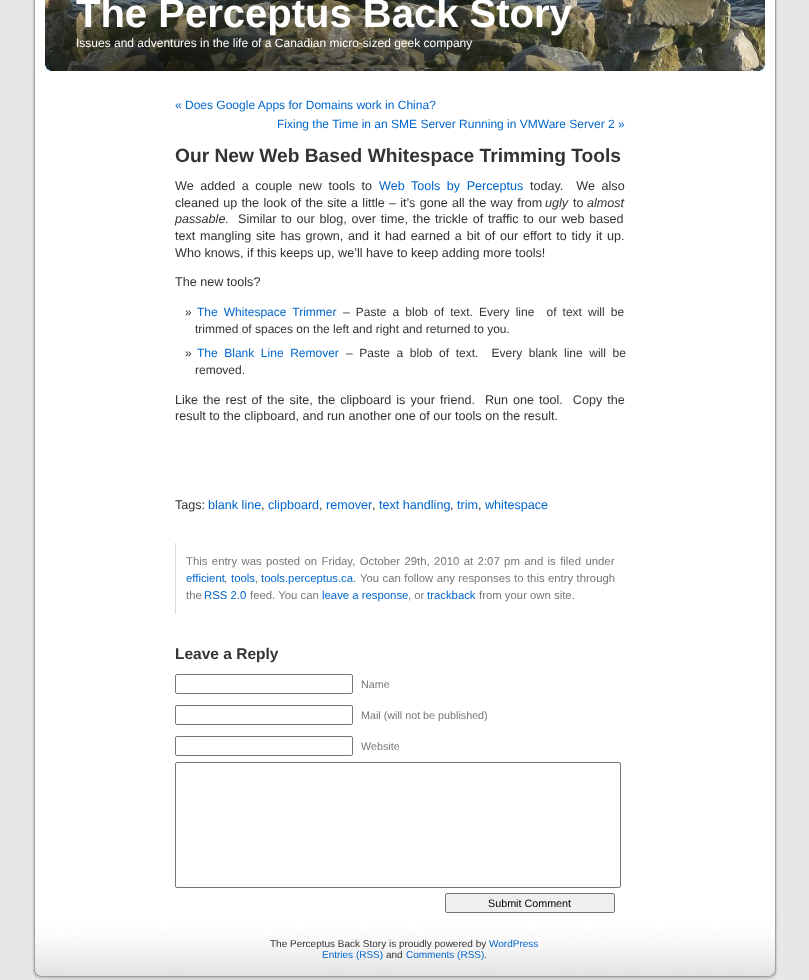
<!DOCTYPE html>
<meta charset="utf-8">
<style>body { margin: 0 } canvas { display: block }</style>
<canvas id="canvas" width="809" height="980"></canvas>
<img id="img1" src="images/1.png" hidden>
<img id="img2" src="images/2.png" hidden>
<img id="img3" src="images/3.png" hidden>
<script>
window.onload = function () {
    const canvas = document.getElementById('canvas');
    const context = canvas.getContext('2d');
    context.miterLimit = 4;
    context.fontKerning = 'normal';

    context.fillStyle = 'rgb(231, 231, 231)';
    context.fillRect(0, 0, 809, 980);
    context.drawImage(document.getElementById('img1'), 32, 71, 746, 847);
    context.drawImage(document.getElementById('img2'), 26, 0, 758, 71);
    context.fillStyle = 'rgb(221, 221, 221)';
    context.fillRect(175, 543, 1, 71);
    context.beginPath();
    context.roundRect(175.5, 674.5, 177, 19, 1.5);
    context.strokeStyle = 'rgb(118, 118, 118)';
    context.stroke();
    context.beginPath();
    context.roundRect(175.5, 705.5, 177, 19, 1.5);
    context.stroke();
    context.beginPath();
    context.roundRect(175.5, 736.5, 177, 19, 1.5);
    context.stroke();
    context.beginPath();
    context.roundRect(175.5, 762.5, 445, 125, 1.5);
    context.stroke();
    context.fillStyle = 'rgb(239, 239, 239)';
    context.beginPath();
    context.roundRect(445.5, 893.5, 169, 19, 1.5);
    context.fill();
    context.stroke();
    context.drawImage(document.getElementById('img3'), 32, 918, 746, 62);
    context.font = 'bold 40px Liberation Sans';
    context.fillStyle = 'rgb(255, 255, 255)';
    context.fillText('The Perceptus Back Story', 76, 27);
    context.font = '12px Liberation Sans';
    context.fillText('Issues and adventures in the life of a Canadian micro-sized geek company', 76, 47);
    context.fillStyle = 'rgb(0, 102, 204)';
    context.fillText('« Does Google Apps for Domains work in China?', 175, 109);
    context.fillText('Fixing the Time in an SME Server Running in VMWare Server 2 »', 277, 128);
    context.font = 'bold 19.2px Liberation Sans';
    context.fillStyle = 'rgb(51, 51, 51)';
    context.fillText('Our New Web Based Whitespace Trimming Tools', 175, 162);
    context.wordSpacing = '3px';
    context.font = '12.6px Liberation Sans';
    context.fillText('We added a couple new tools to', 175, 190);
    context.fillStyle = 'rgb(0, 102, 204)';
    context.fillText('Web Tools by Perceptus', 379, 190);
    context.fillStyle = 'rgb(51, 51, 51)';
    context.fillText('today.  We also', 530, 190);
    context.wordSpacing = '0.75px';
    context.fillText('cleaned up the look of the site a little – it’s gone all the way from', 175, 207);
    context.wordSpacing = '0px';
    context.font = 'italic 12.6px Liberation Sans';
    context.fillText('ugly', 545, 207);
    context.font = '12.6px Liberation Sans';
    context.fillText('to', 573, 207);
    context.font = 'italic 12.6px Liberation Sans';
    context.fillText('almost', 587, 207);
    context.fillText('passable', 175, 223);
    context.wordSpacing = '1.25px';
    context.font = '12.6px Liberation Sans';
    context.fillText('.  Similar to our blog, over time, the trickle of traffic to our web based', 225, 223);
    context.wordSpacing = '1.3px';
    context.fillText('text mangling site has grown, and it had earned a bit of our effort to tidy it up.', 175, 240);
    context.wordSpacing = '0px';
    context.fillText('Who knows, if this keeps up, we’ll have to keep adding more tools!', 175, 257);
    context.fillText('The new tools?', 175, 286);
    context.font = '12px Liberation Sans';
    context.fillText('»', 185, 316);
    context.wordSpacing = '2.75px';
    context.fillStyle = 'rgb(0, 102, 204)';
    context.fillText('The Whitespace Trimmer', 197, 316);
    context.fillStyle = 'rgb(51, 51, 51)';
    context.fillText('– Paste a blob of text. Every line  of text will be', 343, 316);
    context.wordSpacing = '0px';
    context.fillText('trimmed of spaces on the left and right and returned to you.', 195, 333);
    context.fillText('»', 185, 357);
    context.wordSpacing = '3.25px';
    context.fillStyle = 'rgb(0, 102, 204)';
    context.fillText('The Blank Line Remover', 197, 357);
    context.fillStyle = 'rgb(51, 51, 51)';
    context.fillText('– Paste a blob of text.  Every blank line will be', 346, 357);
    context.wordSpacing = '0px';
    context.fillText('removed.', 195, 374);
    context.wordSpacing = '1.5px';
    context.font = '12.6px Liberation Sans';
    context.fillText('Like the rest of the site, the clipboard is your friend.  Run one tool.  Copy the', 175, 404);
    context.wordSpacing = '0px';
    context.fillText('result to the clipboard, and run another one of our tools on the result.', 175, 420);
    context.fillText('Tags:', 175, 509);
    context.fillStyle = 'rgb(0, 102, 204)';
    context.fillText('blank line', 208, 509);
    context.fillStyle = 'rgb(51, 51, 51)';
    context.fillText(',', 261, 509);
    context.fillStyle = 'rgb(0, 102, 204)';
    context.fillText('clipboard', 268, 509);
    context.fillStyle = 'rgb(51, 51, 51)';
    context.fillText(',', 319, 509);
    context.fillStyle = 'rgb(0, 102, 204)';
    context.fillText('remover', 326, 509);
    context.fillStyle = 'rgb(51, 51, 51)';
    context.fillText(',', 372, 509);
    context.fillStyle = 'rgb(0, 102, 204)';
    context.fillText('text handling', 379, 509);
    context.fillStyle = 'rgb(51, 51, 51)';
    context.fillText(',', 450, 509);
    context.fillStyle = 'rgb(0, 102, 204)';
    context.fillText('trim', 457, 509);
    context.fillStyle = 'rgb(51, 51, 51)';
    context.fillText(',', 478, 509);
    context.fillStyle = 'rgb(0, 102, 204)';
    context.fillText('whitespace', 485, 509);
    context.wordSpacing = '1.25px';
    context.font = '11.35px Liberation Sans';
    context.fillStyle = 'rgb(119, 119, 119)';
    context.fillText('This entry was posted on Friday, October 29th, 2010 at 2:07 pm and is filed under', 186, 565);
    context.wordSpacing = '0px';
    context.fillStyle = 'rgb(0, 102, 204)';
    context.fillText('efficient', 186, 582);
    context.fillStyle = 'rgb(119, 119, 119)';
    context.fillText(',', 224, 582);
    context.fillStyle = 'rgb(0, 102, 204)';
    context.fillText('tools', 231, 582);
    context.fillStyle = 'rgb(119, 119, 119)';
    context.fillText(',', 255, 582);
    context.fillStyle = 'rgb(0, 102, 204)';
    context.fillText('tools.perceptus.ca', 261, 582);
    context.fillStyle = 'rgb(119, 119, 119)';
    context.fillText('.', 353, 582);
    context.wordSpacing = '0.25px';
    context.fillText('You can follow any responses to this entry through', 360, 582);
    context.wordSpacing = '0px';
    context.fillText('the', 186, 599);
    context.fillStyle = 'rgb(0, 102, 204)';
    context.fillText('RSS 2.0', 204, 599);
    context.fillStyle = 'rgb(119, 119, 119)';
    context.fillText('feed. You can', 250, 599);
    context.fillStyle = 'rgb(0, 102, 204)';
    context.fillText('leave a response', 322, 599);
    context.fillStyle = 'rgb(119, 119, 119)';
    context.fillText(', or', 408, 599);
    context.fillStyle = 'rgb(0, 102, 204)';
    context.fillText('trackback', 427, 599);
    context.fillStyle = 'rgb(119, 119, 119)';
    context.fillText('from your own site.', 479, 599);
    context.font = 'bold 15.5px Liberation Sans';
    context.fillStyle = 'rgb(51, 51, 51)';
    context.fillText('Leave a Reply', 175, 659);
    context.font = '10.75px Liberation Sans';
    context.fillStyle = 'rgb(119, 119, 119)';
    context.fillText('Name', 361, 688);
    context.fillText('Mail (will not be published)', 361, 719);
    context.fillText('Website', 361, 750);
    context.fillStyle = 'rgb(0, 0, 0)';
    context.fillText('Submit Comment', 488, 907);
    context.font = '10px Liberation Sans';
    context.fillStyle = 'rgb(51, 51, 51)';
    context.fillText('The Perceptus Back Story is proudly powered by', 270, 947);
    context.fillStyle = 'rgb(0, 102, 204)';
    context.fillText('WordPress', 489, 947);
    context.fillText('Entries (RSS)', 322, 958);
    context.fillStyle = 'rgb(51, 51, 51)';
    context.fillText('and', 386, 958);
    context.fillStyle = 'rgb(0, 102, 204)';
    context.fillText('Comments (RSS)', 406, 958);
    context.fillStyle = 'rgb(51, 51, 51)';
    context.fillText('.', 484, 958);
};
</script>
